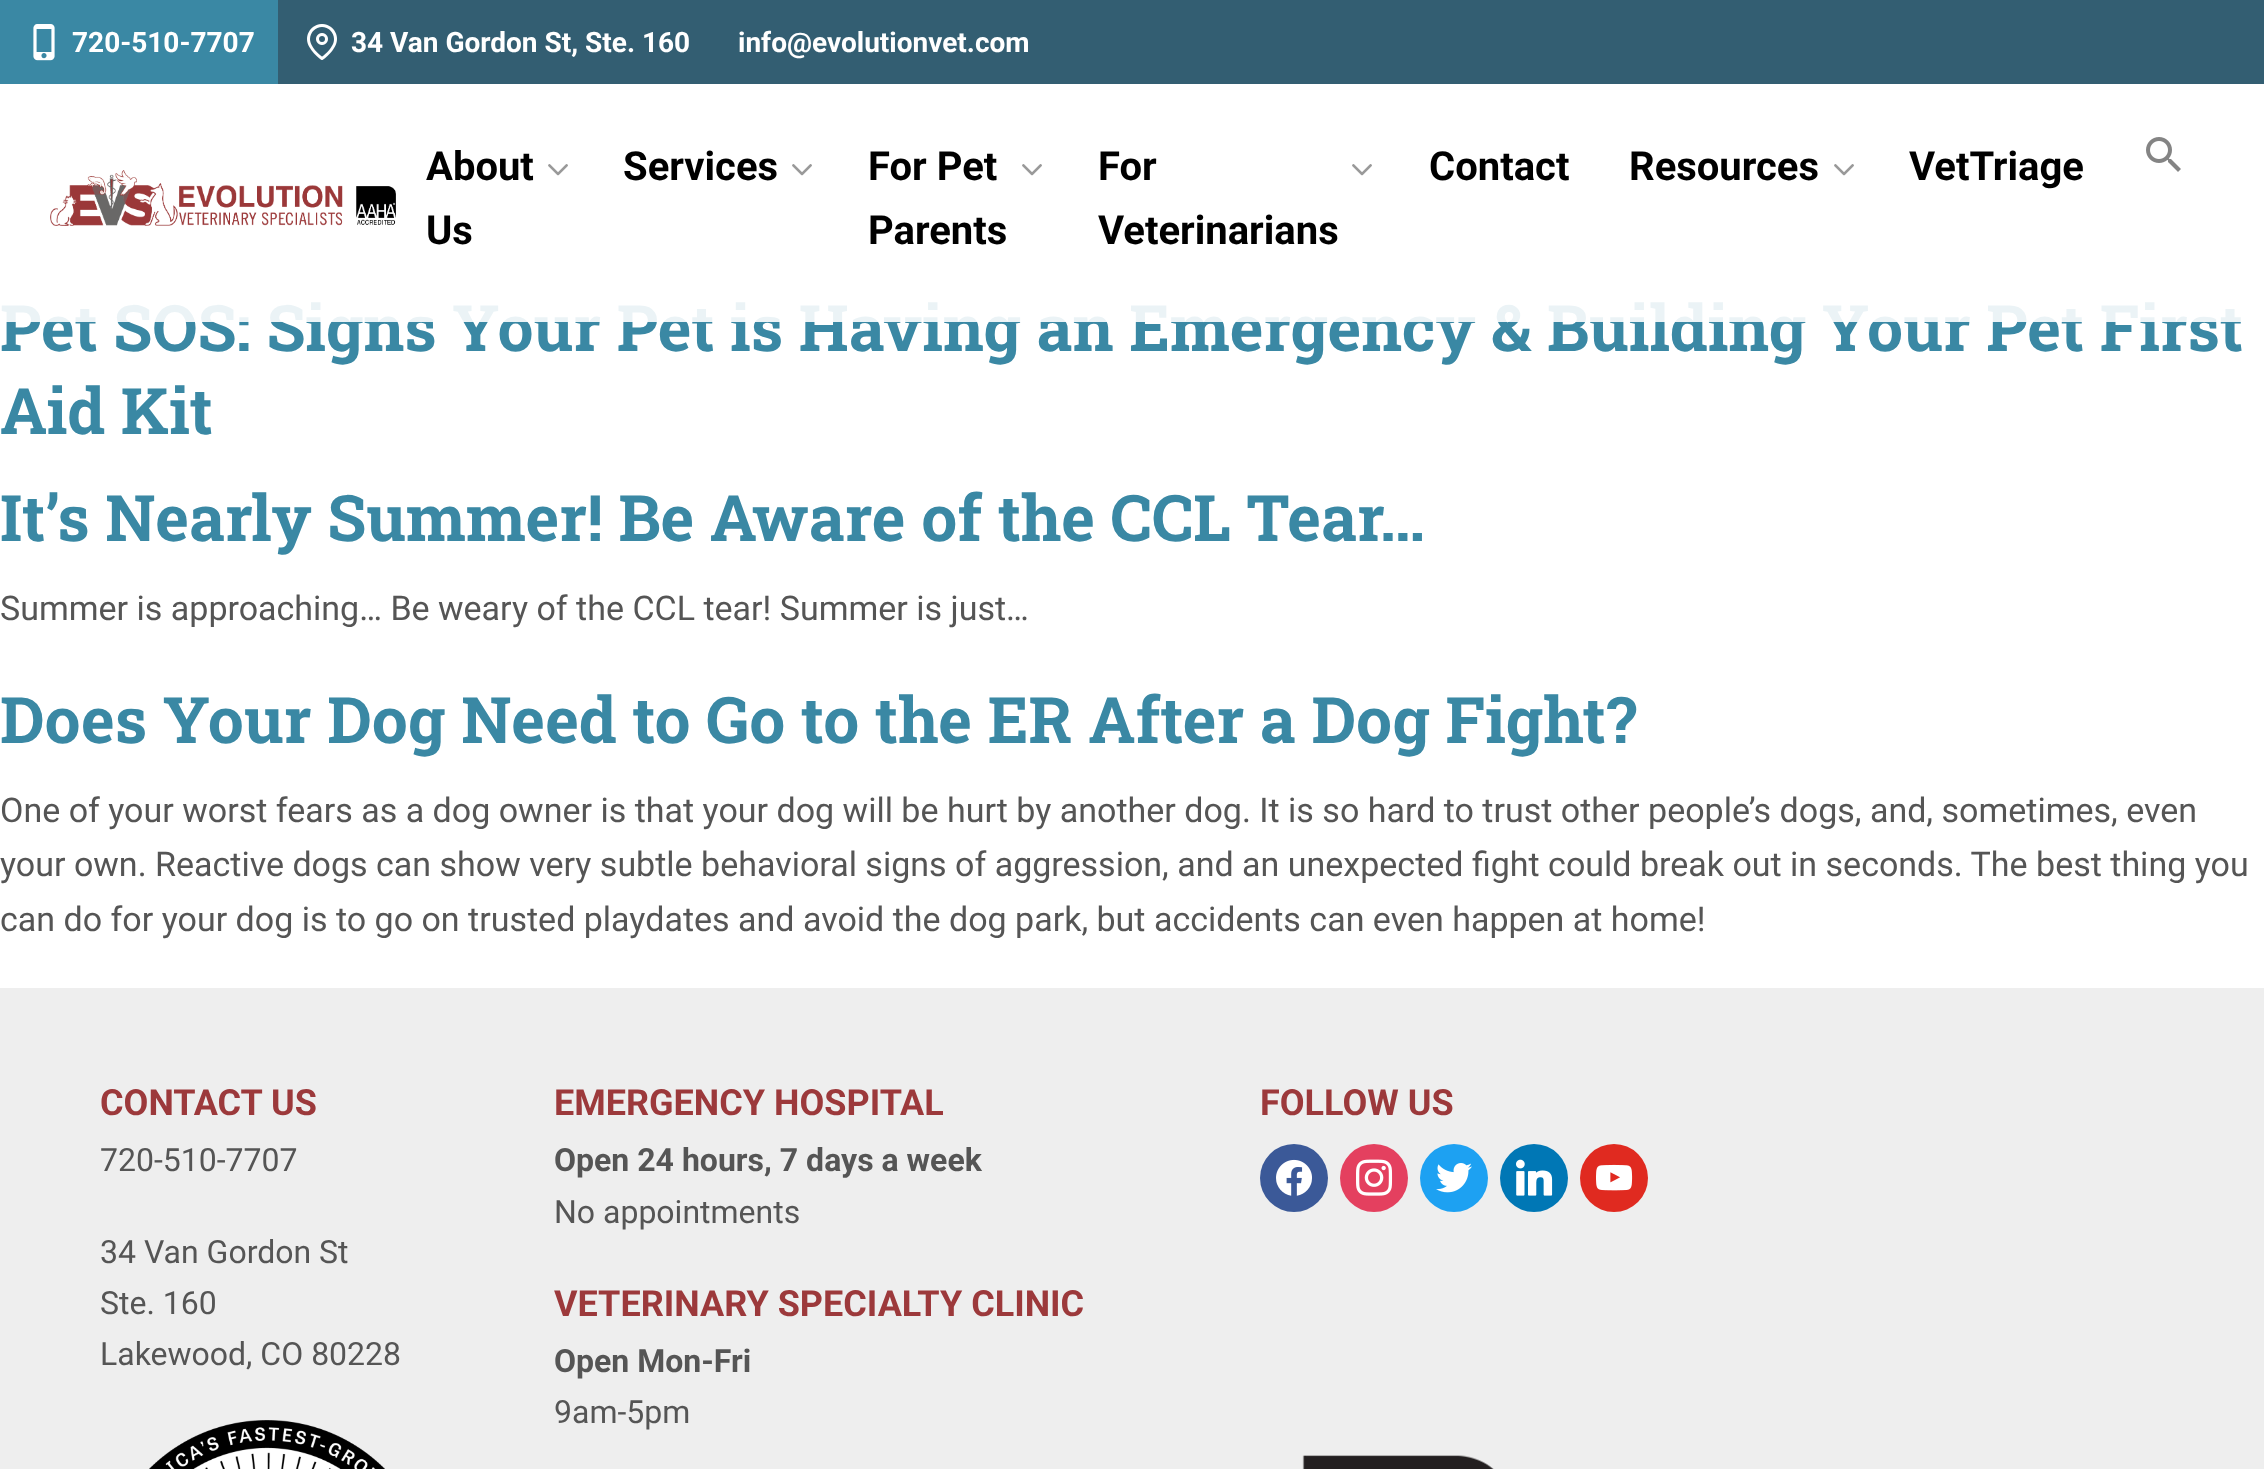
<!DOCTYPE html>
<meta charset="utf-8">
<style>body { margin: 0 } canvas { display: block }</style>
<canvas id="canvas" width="2264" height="1469"></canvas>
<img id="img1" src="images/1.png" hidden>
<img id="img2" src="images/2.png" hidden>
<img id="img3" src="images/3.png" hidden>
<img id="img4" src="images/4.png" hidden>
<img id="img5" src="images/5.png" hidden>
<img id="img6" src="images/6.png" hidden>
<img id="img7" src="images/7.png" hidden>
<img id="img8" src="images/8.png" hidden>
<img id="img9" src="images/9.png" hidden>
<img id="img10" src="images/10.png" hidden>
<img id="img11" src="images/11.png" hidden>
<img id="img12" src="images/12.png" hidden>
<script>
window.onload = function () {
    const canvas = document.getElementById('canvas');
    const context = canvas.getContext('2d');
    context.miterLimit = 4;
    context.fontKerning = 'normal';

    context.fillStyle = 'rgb(255, 255, 255)';
    context.fillRect(0, 0, 2264, 1469);
    context.fillStyle = 'rgb(51, 94, 114)';
    context.fillRect(278, 0, 1986, 84);
    context.fillStyle = 'rgb(58, 136, 164)';
    context.fillRect(0, 0, 278, 84);
    context.drawImage(document.getElementById('img1'), 33, 24, 22, 37);
    context.drawImage(document.getElementById('img2'), 307, 24, 30, 36);
    context.drawImage(document.getElementById('img3'), 50, 170, 346, 56);
    context.drawImage(document.getElementById('img4'), 548, 164, 20, 12);
    context.drawImage(document.getElementById('img4'), 792, 164, 20, 12);
    context.drawImage(document.getElementById('img4'), 1022, 164, 20, 12);
    context.drawImage(document.getElementById('img4'), 1352, 164, 20, 12);
    context.drawImage(document.getElementById('img4'), 1834, 164, 20, 12);
    context.drawImage(document.getElementById('img5'), 2146, 137, 35, 35);
    context.fillStyle = 'rgb(238, 238, 238)';
    context.fillRect(0, 988, 2264, 481);
    context.drawImage(document.getElementById('img6'), 149, 1420, 236, 49);
    context.fillStyle = 'rgb(59, 89, 152)';
    context.beginPath();
    context.arc(1294, 1178, 34, 0, 2 * Math.PI);
    context.fill();
    context.drawImage(document.getElementById('img7'), 1276, 1159, 36, 37);
    context.fillStyle = 'rgb(228, 64, 95)';
    context.beginPath();
    context.arc(1374, 1178, 34, 0, 2 * Math.PI);
    context.fill();
    context.drawImage(document.getElementById('img8'), 1356, 1159, 37, 37);
    context.fillStyle = 'rgb(29, 161, 242)';
    context.beginPath();
    context.arc(1454, 1178, 34, 0, 2 * Math.PI);
    context.fill();
    context.drawImage(document.getElementById('img9'), 1436, 1163, 36, 30);
    context.fillStyle = 'rgb(0, 119, 181)';
    context.beginPath();
    context.arc(1534, 1178, 34, 0, 2 * Math.PI);
    context.fill();
    context.drawImage(document.getElementById('img10'), 1516, 1159, 37, 37);
    context.fillStyle = 'rgb(224, 42, 32)';
    context.beginPath();
    context.arc(1614, 1178, 34, 0, 2 * Math.PI);
    context.fill();
    context.drawImage(document.getElementById('img11'), 1596, 1164, 37, 27);
    context.drawImage(document.getElementById('img12'), 1302, 1455, 192, 14);
    context.font = 'bold 28px Roboto';
    context.fillStyle = 'rgb(255, 255, 255)';
    context.fillText('720-510-7707', 72, 52);
    context.fillText('34 Van Gordon St, Ste. 160', 351, 52);
    context.fillText('info@evolutionvet.com', 738, 52);
    context.font = 'bold 40px Roboto';
    context.fillStyle = 'rgb(0, 0, 0)';
    context.fillText('About', 426, 180);
    context.fillText('Us', 426, 244);
    context.fillText('Services', 623, 180);
    context.fillText('For Pet', 868, 180);
    context.fillText('Parents', 868, 244);
    context.fillText('For', 1098, 180);
    context.fillText('Veterinarians', 1098, 244);
    context.fillText('Contact', 1429, 180);
    context.fillText('Resources', 1629, 180);
    context.fillText('VetTriage', 1909, 180);
    context.font = 'bold 64px Roboto Slab';
    context.fillStyle = 'rgb(58, 136, 164)';
    context.fillText('Pet SOS: Signs Your Pet is Having an Emergency & Building Your Pet First', 0, 351);
    context.fillStyle = 'rgba(255, 255, 255, 0.9)';
    context.fillRect(1, 302, 2240, 20);
    context.fillStyle = 'rgb(58, 136, 164)';
    context.fillText('Aid Kit', 0, 434);
    context.fillText('It’s Nearly Summer! Be Aware of the CCL Tear…', 0, 541);
    context.font = '34px Roboto';
    context.fillStyle = 'rgb(85, 85, 85)';
    context.fillText('Summer is approaching… Be weary of the CCL tear! Summer is just…', 0, 620);
    context.font = 'bold 64px Roboto Slab';
    context.fillStyle = 'rgb(58, 136, 164)';
    context.fillText('Does Your Dog Need to Go to the ER After a Dog Fight?', 0, 743);
    context.font = '34px Roboto';
    context.fillStyle = 'rgb(85, 85, 85)';
    context.fillText('One of your worst fears as a dog owner is that your dog will be hurt by another dog. It is so hard to trust other people’s dogs, and, sometimes, even', 0, 822);
    context.fillText('your own. Reactive dogs can show very subtle behavioral signs of aggression, and an unexpected fight could break out in seconds. The best thing you', 0, 876);
    context.fillText('can do for your dog is to go on trusted playdates and avoid the dog park, but accidents can even happen at home!', 0, 931);
    context.font = 'bold 36px Roboto';
    context.fillStyle = 'rgb(156, 57, 59)';
    context.fillText('CONTACT US', 100, 1115);
    context.font = '32px Roboto';
    context.fillStyle = 'rgb(85, 85, 85)';
    context.fillText('720-510-7707', 100, 1171);
    context.fillText('34 Van Gordon St', 100, 1263);
    context.fillText('Ste. 160', 100, 1314);
    context.fillText('Lakewood, CO 80228', 100, 1365);
    context.font = 'bold 36px Roboto';
    context.fillStyle = 'rgb(156, 57, 59)';
    context.fillText('EMERGENCY HOSPITAL', 554, 1115);
    context.font = 'bold 32px Roboto';
    context.fillStyle = 'rgb(85, 85, 85)';
    context.fillText('Open 24 hours, 7 days a week', 554, 1171);
    context.font = '32px Roboto';
    context.fillText('No appointments', 554, 1223);
    context.font = 'bold 36px Roboto';
    context.fillStyle = 'rgb(156, 57, 59)';
    context.fillText('VETERINARY SPECIALTY CLINIC', 554, 1316);
    context.font = 'bold 32px Roboto';
    context.fillStyle = 'rgb(85, 85, 85)';
    context.fillText('Open Mon-Fri', 554, 1372);
    context.font = '32px Roboto';
    context.fillText('9am-5pm', 554, 1423);
    context.font = 'bold 36px Roboto';
    context.fillStyle = 'rgb(156, 57, 59)';
    context.fillText('FOLLOW US', 1260, 1115);
};
</script>
